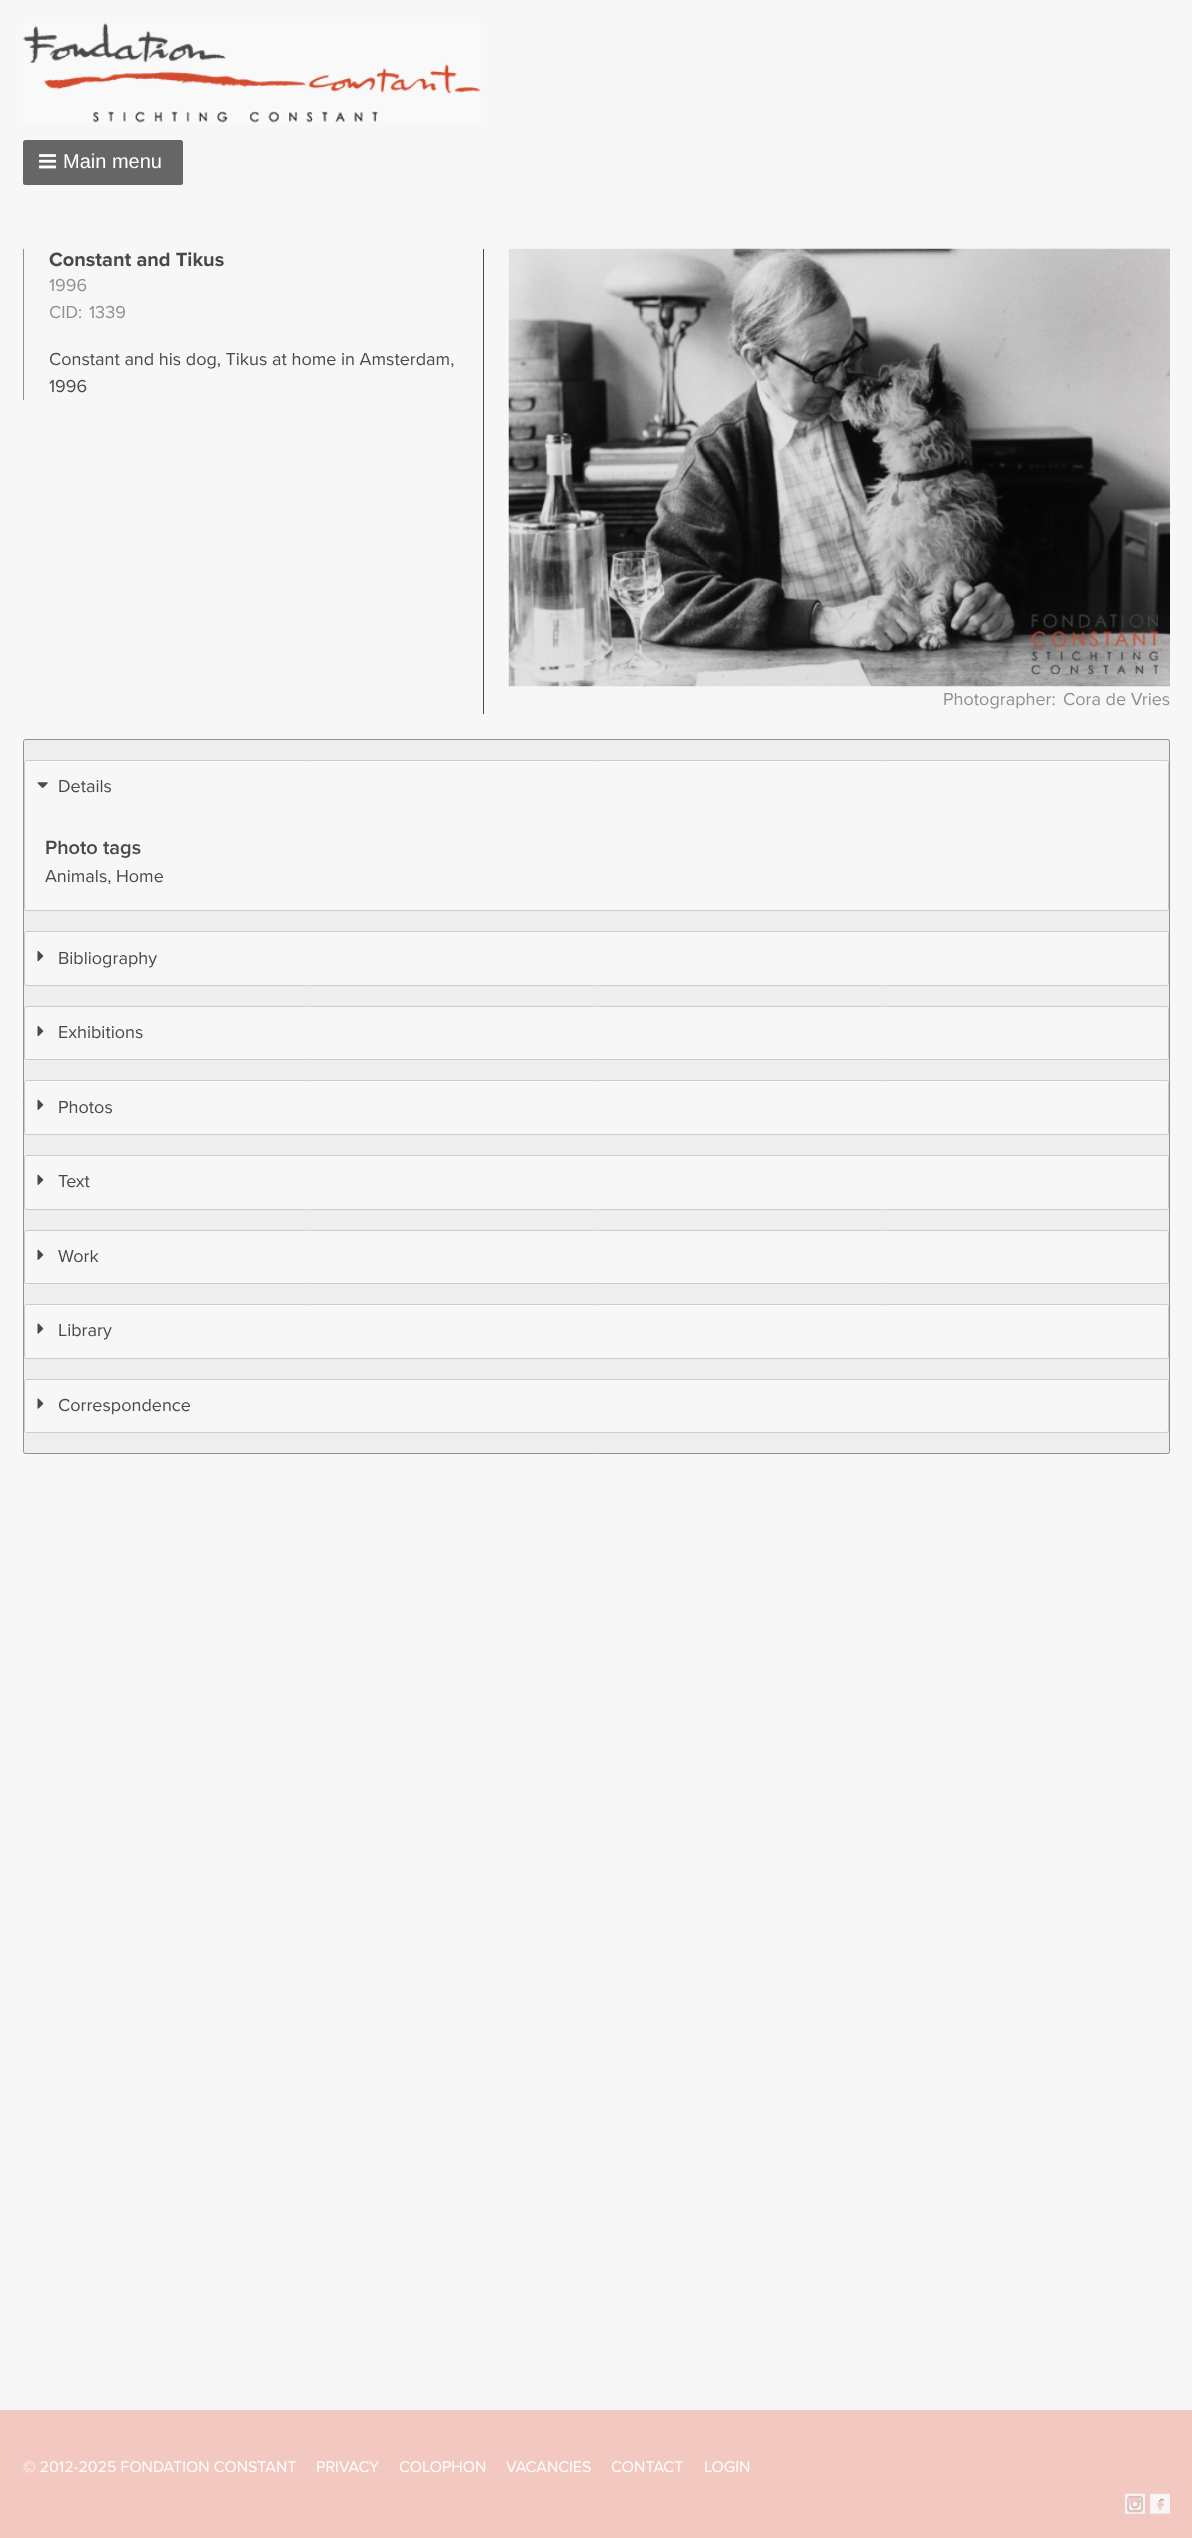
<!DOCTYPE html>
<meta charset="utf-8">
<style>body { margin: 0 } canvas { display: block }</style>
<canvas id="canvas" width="1192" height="2538"></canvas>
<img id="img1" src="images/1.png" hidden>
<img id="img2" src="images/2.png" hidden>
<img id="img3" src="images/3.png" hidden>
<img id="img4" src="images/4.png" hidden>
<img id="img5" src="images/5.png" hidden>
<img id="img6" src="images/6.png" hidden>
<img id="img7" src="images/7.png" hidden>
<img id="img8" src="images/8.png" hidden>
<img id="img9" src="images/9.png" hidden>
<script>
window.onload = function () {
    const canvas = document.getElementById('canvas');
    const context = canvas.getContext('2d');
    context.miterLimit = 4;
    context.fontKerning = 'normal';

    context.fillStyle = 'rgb(247, 247, 247)';
    context.fillRect(0, 0, 1192, 2538);
    context.drawImage(document.getElementById('img1'), 22, 23, 459, 101);
    context.fillStyle = 'rgb(102, 102, 102)';
    context.beginPath();
    context.roundRect(23, 140, 160, 45, 2.5);
    context.fill();
    context.drawImage(document.getElementById('img2'), 38, 154, 19, 15);
    context.fillStyle = 'rgb(143, 144, 143)';
    context.fillRect(23, 249, 1, 151);
    context.fillStyle = 'rgb(73, 73, 73)';
    context.fillRect(483, 249, 1, 465);
    context.drawImage(document.getElementById('img3'), 508, 248, 662, 439);
    context.fillStyle = 'rgb(238, 238, 238)';
    context.beginPath();
    context.roundRect(23.5, 739.5, 1146, 714, 2);
    context.fill();
    context.strokeStyle = 'rgb(143, 144, 143)';
    context.stroke();
    context.fillStyle = 'rgb(247, 247, 247)';
    context.beginPath();
    context.roundRect(24.5, 760.5, 1144, 150, 2);
    context.fill();
    context.strokeStyle = 'rgb(204, 204, 204)';
    context.stroke();
    context.drawImage(document.getElementById('img4'), 37, 782, 11, 6);
    context.beginPath();
    context.roundRect(24.5, 931.5, 1144, 54, 2);
    context.fill();
    context.stroke();
    context.drawImage(document.getElementById('img5'), 37, 951, 7, 11);
    context.beginPath();
    context.roundRect(24.5, 1006.5, 1144, 53, 2);
    context.fill();
    context.stroke();
    context.drawImage(document.getElementById('img5'), 37, 1026, 7, 11);
    context.beginPath();
    context.roundRect(24.5, 1080.5, 1144, 54, 2);
    context.fill();
    context.stroke();
    context.drawImage(document.getElementById('img6'), 37, 1099, 7, 11);
    context.beginPath();
    context.roundRect(24.5, 1155.5, 1144, 54, 2);
    context.fill();
    context.stroke();
    context.drawImage(document.getElementById('img6'), 37, 1174, 7, 11);
    context.beginPath();
    context.roundRect(24.5, 1230.5, 1144, 53, 2);
    context.fill();
    context.stroke();
    context.drawImage(document.getElementById('img6'), 37, 1249, 7, 11);
    context.beginPath();
    context.roundRect(24.5, 1304.5, 1144, 54, 2);
    context.fill();
    context.stroke();
    context.drawImage(document.getElementById('img7'), 37, 1323, 7, 11);
    context.beginPath();
    context.roundRect(24.5, 1379.5, 1144, 53, 2);
    context.fill();
    context.stroke();
    context.drawImage(document.getElementById('img7'), 37, 1398, 7, 11);
    context.fillStyle = 'rgb(242, 200, 192)';
    context.fillRect(0, 2410, 1192, 128);
    context.drawImage(document.getElementById('img8'), 1125, 2493, 20, 21);
    context.drawImage(document.getElementById('img9'), 1150, 2493, 20, 21);
    context.font = '20px Liberation Sans';
    context.fillStyle = 'rgb(255, 255, 255)';
    context.fillText('Main menu', 63, 168);
    context.font = 'bold 20px Proxima Nova';
    context.fillStyle = 'rgb(73, 73, 73)';
    context.fillText('Constant and Tikus', 49, 266);
    context.font = '18px Proxima Nova';
    context.fillStyle = 'rgb(143, 144, 143)';
    context.fillText('1996', 49, 291);
    context.fillText('CID:', 49, 318);
    context.fillText('1339', 89, 318);
    context.fillStyle = 'rgb(73, 73, 73)';
    context.fillText('Constant and his dog, Tikus at home in Amsterdam,', 49, 365);
    context.fillText('1996', 49, 392);
    context.fillStyle = 'rgb(143, 144, 143)';
    context.fillText('Photographer:', 943, 705);
    context.fillText('Cora de Vries', 1063, 705);
    context.fillStyle = 'rgb(73, 73, 73)';
    context.fillText('Details', 58, 792);
    context.font = '600 20px Proxima Nova';
    context.fillText('Photo tags', 45, 854);
    context.font = '18px Proxima Nova';
    context.fillText('Animals,', 45, 882);
    context.fillText('Home', 116, 882);
    context.fillText('Bibliography', 58, 964);
    context.fillText('Exhibitions', 58, 1038);
    context.fillText('Photos', 58, 1113);
    context.fillText('Text', 58, 1187);
    context.fillText('Work', 58, 1262);
    context.fillText('Library', 58, 1336);
    context.fillText('Correspondence', 58, 1411);
    context.font = '16px Proxima Nova';
    context.fillStyle = 'rgb(255, 255, 255)';
    context.fillText('© 2012-2025 FONDATION CONSTANT', 23, 2472);
    context.fillText('PRIVACY', 316, 2472);
    context.fillText('COLOPHON', 399, 2472);
    context.fillText('VACANCIES', 506, 2472);
    context.fillText('CONTACT', 611, 2472);
    context.fillText('LOGIN', 704, 2472);
};
</script>
